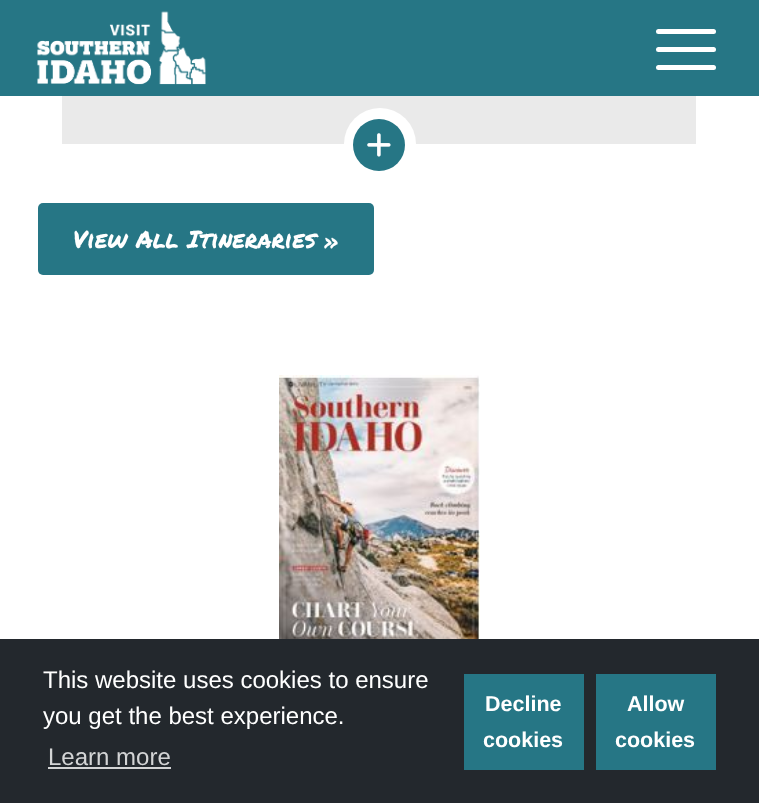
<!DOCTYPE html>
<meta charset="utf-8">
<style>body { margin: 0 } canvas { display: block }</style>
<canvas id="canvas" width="759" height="803"></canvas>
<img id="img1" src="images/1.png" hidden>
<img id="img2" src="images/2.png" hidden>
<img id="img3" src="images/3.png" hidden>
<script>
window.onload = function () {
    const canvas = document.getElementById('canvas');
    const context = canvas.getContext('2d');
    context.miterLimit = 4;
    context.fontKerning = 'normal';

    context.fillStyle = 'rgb(255, 255, 255)';
    context.fillRect(0, 0, 759, 803);
    context.fillStyle = 'rgb(38, 118, 133)';
    context.fillRect(0, 0, 759, 96);
    context.drawImage(document.getElementById('img1'), 37, 11, 169, 74);
    context.fillStyle = 'rgb(255, 255, 255)';
    context.beginPath();
    context.roundRect(656, 47, 60, 5, 2.5);
    context.fill();
    context.beginPath();
    context.roundRect(656, 29, 60, 5, 2.5);
    context.fill();
    context.beginPath();
    context.roundRect(656, 65, 60, 5, 2.5);
    context.fill();
    context.fillStyle = 'rgb(234, 234, 234)';
    context.fillRect(62, 96, 634, 48);
    context.fillStyle = 'rgb(255, 255, 255)';
    context.beginPath();
    context.arc(380, 144, 36, 0, 2 * Math.PI);
    context.fill();
    context.fillStyle = 'rgb(38, 118, 133)';
    context.beginPath();
    context.arc(379, 145, 26, 0, 2 * Math.PI);
    context.fill();
    context.drawImage(document.getElementById('img2'), 367, 133, 24, 24);
    context.beginPath();
    context.roundRect(38, 203, 336, 72, 5);
    context.fill();
    context.drawImage(document.getElementById('img3'), 279, 375, 201, 264);
    context.fillStyle = 'rgb(35, 40, 45)';
    context.fillRect(0, 639, 759, 164);
    context.fillStyle = 'rgb(211, 212, 213)';
    context.fillRect(48, 767, 123, 2);
    context.fillStyle = 'rgb(38, 118, 133)';
    context.fillRect(464, 674, 120, 96);
    context.fillRect(596, 674, 120, 96);
    context.font = '24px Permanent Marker';
    context.fillStyle = 'rgb(255, 255, 255)';
    context.fillText('View All Itineraries »', 73, 248);
    context.font = '24px Liberation Sans';
    context.fillText('This website uses cookies to ensure', 43, 688);
    context.fillText('you get the best experience.', 43, 724);
    context.fillStyle = 'rgb(211, 212, 213)';
    context.fillText('Learn more', 48, 765);
    context.font = 'bold 21.5px Liberation Sans';
    context.fillStyle = 'rgb(255, 255, 255)';
    context.fillText('Decline', 485, 711);
    context.fillText('cookies', 483, 747);
    context.fillText('Allow', 627, 711);
    context.fillText('cookies', 615, 747);
};
</script>
